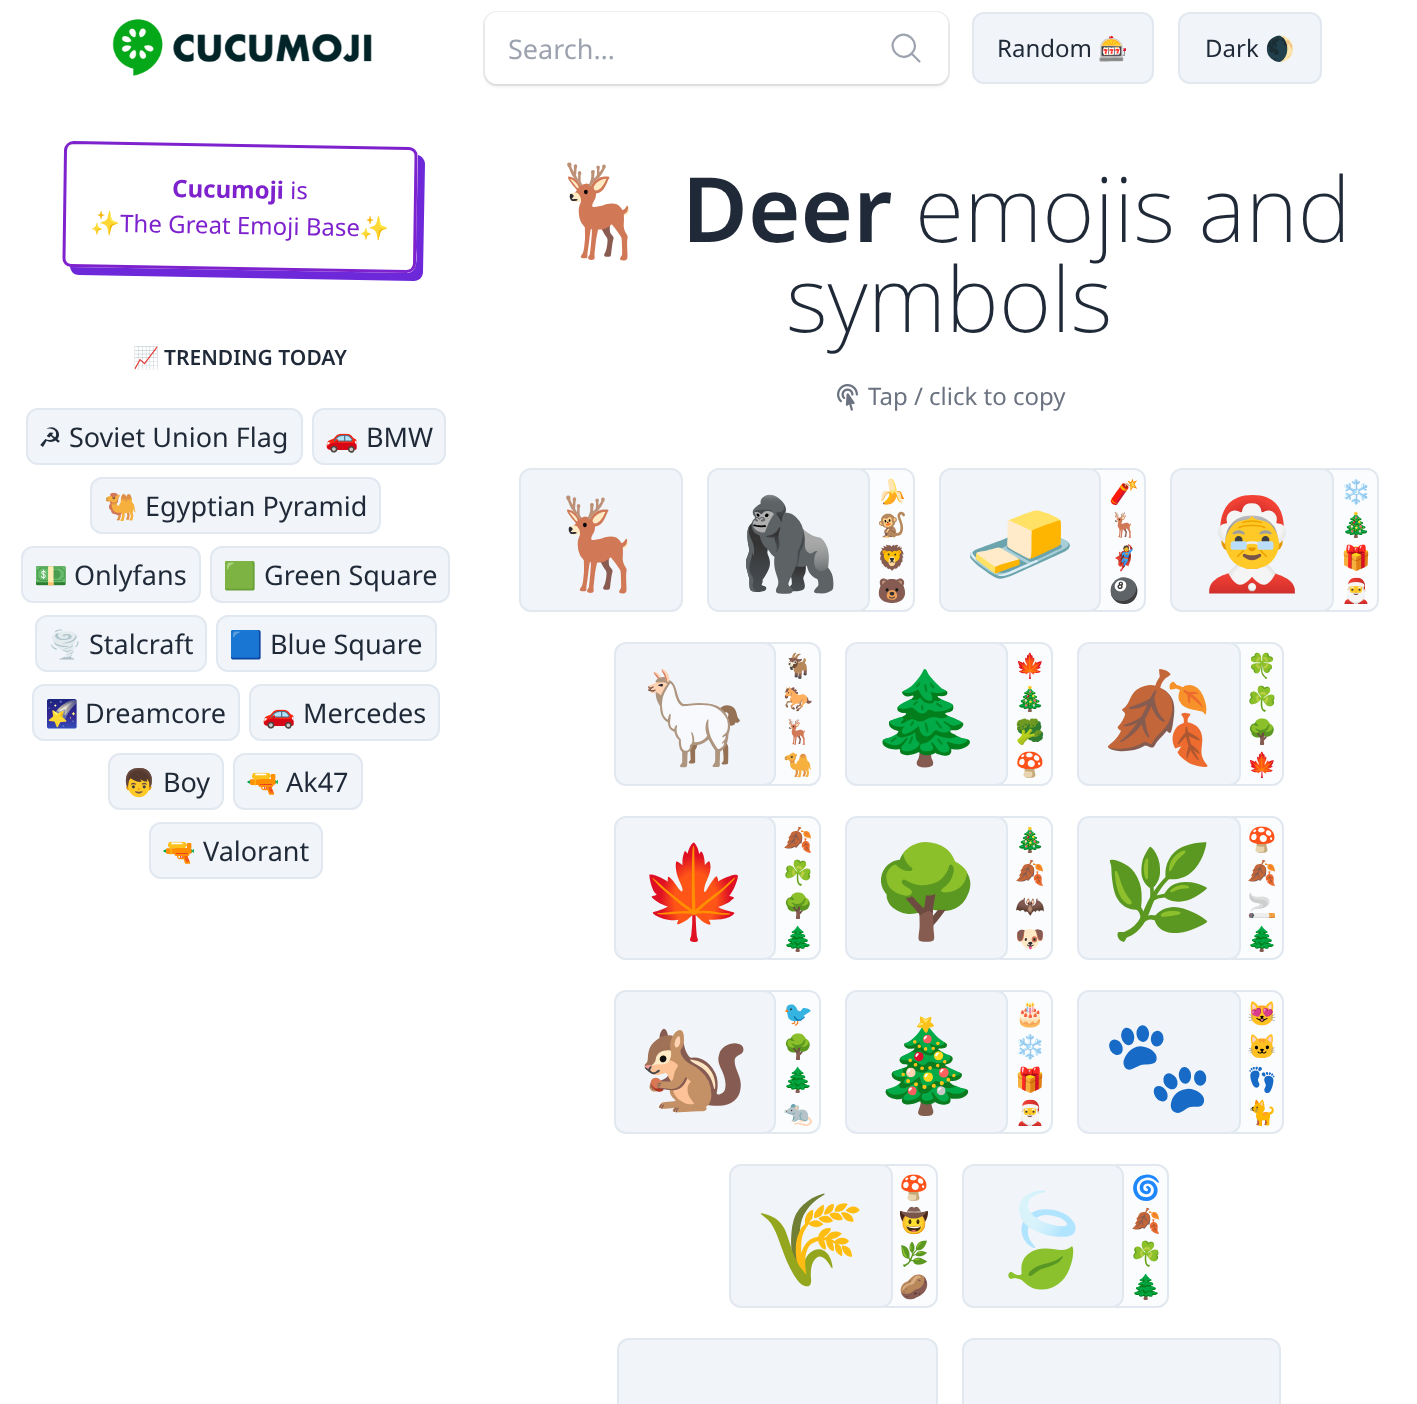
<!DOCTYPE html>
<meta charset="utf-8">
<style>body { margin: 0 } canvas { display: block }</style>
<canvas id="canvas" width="1417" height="1404"></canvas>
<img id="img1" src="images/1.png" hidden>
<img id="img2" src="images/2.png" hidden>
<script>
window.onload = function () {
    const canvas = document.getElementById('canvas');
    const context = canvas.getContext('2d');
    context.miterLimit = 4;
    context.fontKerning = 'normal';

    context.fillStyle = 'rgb(255, 255, 255)';
    context.fillRect(0, 0, 1417, 1404);
    context.drawImage(document.getElementById('img1'), 112, 19, 260, 57);
    context.beginPath();
    context.roundRect(484, 12, 465, 73, 13);
    context.strokeStyle = 'rgb(237, 237, 237)';
    context.lineWidth = 2;
    context.stroke();
    context.fillStyle = 'rgba(0, 0, 0, 0.1)';
    context.filter = 'blur(2px)';
    context.beginPath();
    context.roundRect(486, 17, 461, 69, 11);
    context.fill();
    context.filter = 'none';
    context.fillStyle = 'rgb(255, 255, 255)';
    context.beginPath();
    context.roundRect(485, 12, 463, 72, 12);
    context.fill();
    context.beginPath();
    context.moveTo(919.5, 61.5);
    context.lineTo(911.5, 53.5);
    context.moveTo(911.5, 53.5);
    context.bezierCurveTo(922, 43.5, 906, 27.5, 896, 38);
    context.bezierCurveTo(885.5, 48, 901.5, 64, 911.5, 53.5);
    context.closePath();
    context.strokeStyle = 'rgb(156, 163, 175)';
    context.lineWidth = 2.2;
    context.lineCap = 'round';
    context.lineJoin = 'round';
    context.stroke();
    context.fillStyle = 'rgb(241, 245, 249)';
    context.beginPath();
    context.roundRect(973, 13, 180, 70, 11);
    context.fill();
    context.strokeStyle = 'rgb(226, 232, 240)';
    context.lineWidth = 2;
    context.lineJoin = 'miter';
    context.stroke();
    context.beginPath();
    context.roundRect(1179, 13, 142, 70, 11);
    context.fill();
    context.stroke();
    context.fillStyle = 'rgb(109, 40, 217)';
    context.beginPath();
    context.moveTo(70, 267);
    context.bezierCurveTo(71, 272, 74, 275, 79, 275);
    context.lineTo(414, 281);
    context.bezierCurveTo(419, 281, 423, 277, 423, 272);
    context.lineTo(425, 164);
    context.bezierCurveTo(425, 160, 422, 156, 418, 155);
    context.lineTo(416, 246);
    context.bezierCurveTo(416, 252, 420, 273, 407, 273);
    context.closePath();
    context.fill();
    context.beginPath();
    context.moveTo(73.5, 142.5);
    context.lineTo(409, 148.5);
    context.bezierCurveTo(413, 148.5, 416.5, 152, 416, 156);
    context.lineTo(414.5, 264);
    context.bezierCurveTo(414, 268, 411, 271.5, 406.5, 271.5);
    context.lineTo(71, 265.5);
    context.bezierCurveTo(67, 265.5, 63.5, 262, 64, 258);
    context.lineTo(65.5, 150);
    context.bezierCurveTo(66, 146, 69, 142.5, 73.5, 142.5);
    context.closePath();
    context.strokeStyle = 'rgb(126, 34, 206)';
    context.lineWidth = 3;
    context.lineCap = 'butt';
    context.stroke();
    context.fillStyle = 'rgb(241, 245, 249)';
    context.beginPath();
    context.roundRect(27, 409, 275, 55, 11);
    context.fill();
    context.strokeStyle = 'rgb(226, 232, 240)';
    context.lineWidth = 2;
    context.stroke();
    context.beginPath();
    context.roundRect(313, 409, 132, 55, 11);
    context.fill();
    context.stroke();
    context.beginPath();
    context.roundRect(91, 478, 289, 55, 11);
    context.fill();
    context.stroke();
    context.beginPath();
    context.roundRect(22, 547, 178, 55, 11);
    context.fill();
    context.stroke();
    context.beginPath();
    context.roundRect(211, 547, 238, 55, 11);
    context.fill();
    context.stroke();
    context.beginPath();
    context.roundRect(36, 616, 170, 55, 11);
    context.fill();
    context.stroke();
    context.beginPath();
    context.roundRect(217, 616, 219, 55, 11);
    context.fill();
    context.stroke();
    context.beginPath();
    context.roundRect(33, 685, 206, 55, 11);
    context.fill();
    context.stroke();
    context.beginPath();
    context.roundRect(250, 685, 189, 55, 11);
    context.fill();
    context.stroke();
    context.beginPath();
    context.roundRect(109, 754, 114, 55, 11);
    context.fill();
    context.stroke();
    context.beginPath();
    context.roundRect(234, 754, 128, 55, 11);
    context.fill();
    context.stroke();
    context.beginPath();
    context.roundRect(150, 823, 172, 55, 11);
    context.fill();
    context.stroke();
    context.drawImage(document.getElementById('img2'), 837, 384, 21, 27);
    context.beginPath();
    context.roundRect(520, 469, 162, 142, 11);
    context.fill();
    context.stroke();
    context.fillStyle = 'rgb(251, 252, 253)';
    context.beginPath();
    context.roundRect(862, 469, 52, 142, [0, 11, 11, 0]);
    context.fill();
    context.stroke();
    context.fillStyle = 'rgb(241, 245, 249)';
    context.beginPath();
    context.roundRect(708, 469, 161, 142, 11);
    context.fill();
    context.stroke();
    context.fillStyle = 'rgb(251, 252, 253)';
    context.beginPath();
    context.roundRect(1093, 469, 52, 142, [0, 11, 11, 0]);
    context.fill();
    context.stroke();
    context.fillStyle = 'rgb(241, 245, 249)';
    context.beginPath();
    context.roundRect(940, 469, 160, 142, 11);
    context.fill();
    context.stroke();
    context.fillStyle = 'rgb(251, 252, 253)';
    context.beginPath();
    context.roundRect(1326, 469, 52, 142, [0, 11, 11, 0]);
    context.fill();
    context.stroke();
    context.fillStyle = 'rgb(241, 245, 249)';
    context.beginPath();
    context.roundRect(1171, 469, 162, 142, 11);
    context.fill();
    context.stroke();
    context.fillStyle = 'rgb(251, 252, 253)';
    context.beginPath();
    context.roundRect(768, 643, 52, 142, [0, 11, 11, 0]);
    context.fill();
    context.stroke();
    context.fillStyle = 'rgb(241, 245, 249)';
    context.beginPath();
    context.roundRect(615, 643, 160, 142, 11);
    context.fill();
    context.stroke();
    context.fillStyle = 'rgb(251, 252, 253)';
    context.beginPath();
    context.roundRect(1000, 643, 52, 142, [0, 11, 11, 0]);
    context.fill();
    context.stroke();
    context.fillStyle = 'rgb(241, 245, 249)';
    context.beginPath();
    context.roundRect(846, 643, 161, 142, 11);
    context.fill();
    context.stroke();
    context.fillStyle = 'rgb(251, 252, 253)';
    context.beginPath();
    context.roundRect(1233, 643, 50, 142, [0, 11, 11, 0]);
    context.fill();
    context.stroke();
    context.fillStyle = 'rgb(241, 245, 249)';
    context.beginPath();
    context.roundRect(1078, 643, 162, 142, 11);
    context.fill();
    context.stroke();
    context.fillStyle = 'rgb(251, 252, 253)';
    context.beginPath();
    context.roundRect(768, 817, 52, 142, [0, 11, 11, 0]);
    context.fill();
    context.stroke();
    context.fillStyle = 'rgb(241, 245, 249)';
    context.beginPath();
    context.roundRect(615, 817, 160, 142, 11);
    context.fill();
    context.stroke();
    context.fillStyle = 'rgb(251, 252, 253)';
    context.beginPath();
    context.roundRect(1000, 817, 52, 142, [0, 11, 11, 0]);
    context.fill();
    context.stroke();
    context.fillStyle = 'rgb(241, 245, 249)';
    context.beginPath();
    context.roundRect(846, 817, 161, 142, 11);
    context.fill();
    context.stroke();
    context.fillStyle = 'rgb(251, 252, 253)';
    context.beginPath();
    context.roundRect(1233, 817, 50, 142, [0, 11, 11, 0]);
    context.fill();
    context.stroke();
    context.fillStyle = 'rgb(241, 245, 249)';
    context.beginPath();
    context.roundRect(1078, 817, 162, 142, 11);
    context.fill();
    context.stroke();
    context.fillStyle = 'rgb(251, 252, 253)';
    context.beginPath();
    context.roundRect(768, 991, 52, 142, [0, 11, 11, 0]);
    context.fill();
    context.stroke();
    context.fillStyle = 'rgb(241, 245, 249)';
    context.beginPath();
    context.roundRect(615, 991, 160, 142, 11);
    context.fill();
    context.stroke();
    context.fillStyle = 'rgb(251, 252, 253)';
    context.beginPath();
    context.roundRect(1000, 991, 52, 142, [0, 11, 11, 0]);
    context.fill();
    context.stroke();
    context.fillStyle = 'rgb(241, 245, 249)';
    context.beginPath();
    context.roundRect(846, 991, 161, 142, 11);
    context.fill();
    context.stroke();
    context.fillStyle = 'rgb(251, 252, 253)';
    context.beginPath();
    context.roundRect(1233, 991, 50, 142, [0, 11, 11, 0]);
    context.fill();
    context.stroke();
    context.fillStyle = 'rgb(241, 245, 249)';
    context.beginPath();
    context.roundRect(1078, 991, 162, 142, 11);
    context.fill();
    context.stroke();
    context.fillStyle = 'rgb(251, 252, 253)';
    context.beginPath();
    context.roundRect(885, 1165, 52, 142, [0, 11, 11, 0]);
    context.fill();
    context.stroke();
    context.fillStyle = 'rgb(241, 245, 249)';
    context.beginPath();
    context.roundRect(730, 1165, 162, 142, 11);
    context.fill();
    context.stroke();
    context.fillStyle = 'rgb(251, 252, 253)';
    context.beginPath();
    context.roundRect(1116, 1165, 52, 142, [0, 11, 11, 0]);
    context.fill();
    context.stroke();
    context.fillStyle = 'rgb(241, 245, 249)';
    context.beginPath();
    context.roundRect(963, 1165, 160, 142, 11);
    context.fill();
    context.stroke();
    context.beginPath();
    context.roundRect(618, 1339, 319, 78, 11);
    context.fill();
    context.stroke();
    context.beginPath();
    context.roundRect(963, 1339, 317, 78, 11);
    context.fill();
    context.stroke();
    context.font = '27px Noto Sans';
    context.fillStyle = 'rgb(156, 163, 175)';
    context.fillText('Search…', 508, 59);
    context.font = '24px Noto Sans';
    context.fillStyle = 'rgb(31, 41, 55)';
    context.fillText('Random', 997, 57);
    context.font = '24px Noto Color Emoji';
    context.fillText('🎰', 1098, 57);
    context.font = '24px Noto Sans';
    context.fillText('Dark', 1205, 57);
    context.font = '24px Noto Color Emoji';
    context.fillText('🌒', 1265, 57);
    context.font = 'bold 24px Noto Sans';
    context.fillStyle = 'rgb(126, 34, 206)';
    context.save();
    context.translate(172, 197);
    context.rotate(1 * Math.PI / 180);
    context.fillText('Cucumoji', 0, 0);
    context.restore();
    context.font = '24px Noto Sans';
    context.save();
    context.translate(290, 199);
    context.rotate(1 * Math.PI / 180);
    context.fillText('is', 0, 0);
    context.restore();
    context.font = '24px Noto Color Emoji';
    context.save();
    context.translate(90, 231);
    context.rotate(1 * Math.PI / 180);
    context.fillText('✨', 0, 0);
    context.restore();
    context.font = '24px Noto Sans';
    context.save();
    context.translate(120, 232);
    context.rotate(1 * Math.PI / 180);
    context.fillText('The Great Emoji Base', 0, 0);
    context.restore();
    context.font = '24px Noto Color Emoji';
    context.save();
    context.translate(359, 236);
    context.rotate(1 * Math.PI / 180);
    context.fillText('✨', 0, 0);
    context.restore();
    context.font = '21px Noto Color Emoji';
    context.fillStyle = 'rgb(31, 41, 55)';
    context.fillText('📈', 133, 365);
    context.font = '600 21px Noto Sans';
    context.fillText('TRENDING TODAY', 164, 365);
    context.font = '27px DejaVu Sans';
    context.fillText('☭', 38, 447);
    context.font = '27px Noto Sans';
    context.fillText('Soviet Union Flag', 69, 447);
    context.font = '27px Noto Color Emoji';
    context.fillText('🚗', 325, 447);
    context.font = '27px Noto Sans';
    context.fillText('BMW', 366, 447);
    context.font = '27px Noto Color Emoji';
    context.fillText('🐫', 104, 516);
    context.font = '27px Noto Sans';
    context.fillText('Egyptian Pyramid', 145, 516);
    context.font = '27px Noto Color Emoji';
    context.fillText('💵', 34, 585);
    context.font = '27px Noto Sans';
    context.fillText('Onlyfans', 74, 585);
    context.font = '27px Noto Color Emoji';
    context.fillText('🟩', 223, 585);
    context.font = '27px Noto Sans';
    context.fillText('Green Square', 264, 585);
    context.font = '27px Noto Color Emoji';
    context.fillText('🌪️', 48, 654);
    context.font = '27px Noto Sans';
    context.fillText('Stalcraft', 89, 654);
    context.font = '27px Noto Color Emoji';
    context.fillText('🟦', 229, 654);
    context.font = '27px Noto Sans';
    context.fillText('Blue Square', 270, 654);
    context.font = '27px Noto Color Emoji';
    context.fillText('🌠', 45, 723);
    context.font = '27px Noto Sans';
    context.fillText('Dreamcore', 85, 723);
    context.font = '27px Noto Color Emoji';
    context.fillText('🚗', 262, 723);
    context.font = '27px Noto Sans';
    context.fillText('Mercedes', 303, 723);
    context.font = '27px Noto Color Emoji';
    context.fillText('👦', 122, 792);
    context.font = '27px Noto Sans';
    context.fillText('Boy', 163, 792);
    context.font = '27px Noto Color Emoji';
    context.fillText('🔫', 246, 792);
    context.font = '27px Noto Sans';
    context.fillText('Ak47', 286, 792);
    context.font = '27px Noto Color Emoji';
    context.fillText('🔫', 162, 861);
    context.font = '27px Noto Sans';
    context.fillText('Valorant', 203, 861);
    context.font = '90px Noto Color Emoji';
    context.fillText('🦌', 546, 242);
    context.font = '600 90px Noto Sans';
    context.fillText('Deer', 682, 242);
    context.font = '200 90px Noto Sans';
    context.fillText('emojis and', 915, 242);
    context.fillText('symbols', 786, 332);
    context.font = '24px Noto Sans';
    context.fillStyle = 'rgb(107, 114, 128)';
    context.fillText('Tap / click to copy', 868, 405);
    context.font = '90px Noto Color Emoji';
    context.fillStyle = 'rgb(31, 41, 55)';
    context.fillText('🦌', 545, 575);
    context.fillText('🦍', 732, 575);
    context.font = '24px Noto Color Emoji';
    context.fillText('🍌', 877, 500);
    context.fillText('🐒', 877, 533);
    context.fillText('🦁', 877, 566);
    context.fillText('🐻', 877, 599);
    context.font = '90px Noto Color Emoji';
    context.fillText('🧈', 964, 575);
    context.font = '24px Noto Color Emoji';
    context.fillText('🧨', 1109, 500);
    context.fillText('🦌', 1109, 533);
    context.fillText('🦸', 1109, 566);
    context.fillText('🎱', 1109, 599);
    context.font = '90px Noto Color Emoji';
    context.fillText('🤶', 1196, 575);
    context.font = '24px Noto Color Emoji';
    context.fillText('❄️', 1341, 500);
    context.fillText('🎄', 1341, 533);
    context.fillText('🎁', 1341, 566);
    context.fillText('🎅', 1341, 599);
    context.font = '90px Noto Color Emoji';
    context.fillText('🦙', 638, 749);
    context.font = '24px Noto Color Emoji';
    context.fillText('🐐', 783, 674);
    context.fillText('🐎', 783, 707);
    context.fillText('🦌', 783, 740);
    context.fillText('🐪', 783, 773);
    context.font = '90px Noto Color Emoji';
    context.fillText('🌲', 870, 749);
    context.font = '24px Noto Color Emoji';
    context.fillText('🍁', 1015, 674);
    context.fillText('🎄', 1015, 707);
    context.fillText('🥦', 1015, 740);
    context.fillText('🍄', 1015, 773);
    context.font = '90px Noto Color Emoji';
    context.fillText('🍂', 1102, 749);
    context.font = '24px Noto Color Emoji';
    context.fillText('🍀', 1247, 674);
    context.fillText('☘️', 1247, 707);
    context.fillText('🌳', 1247, 740);
    context.fillText('🍁', 1247, 773);
    context.font = '90px Noto Color Emoji';
    context.fillText('🍁', 638, 923);
    context.font = '24px Noto Color Emoji';
    context.fillText('🍂', 783, 848);
    context.fillText('☘️', 783, 881);
    context.fillText('🌳', 783, 914);
    context.fillText('🌲', 783, 947);
    context.font = '90px Noto Color Emoji';
    context.fillText('🌳', 870, 923);
    context.font = '24px Noto Color Emoji';
    context.fillText('🎄', 1015, 848);
    context.fillText('🍂', 1015, 881);
    context.fillText('🦇', 1015, 914);
    context.fillText('🐶', 1015, 947);
    context.font = '90px Noto Color Emoji';
    context.fillText('🌿', 1102, 923);
    context.font = '24px Noto Color Emoji';
    context.fillText('🍄', 1247, 848);
    context.fillText('🍂', 1247, 881);
    context.fillText('🚬', 1247, 914);
    context.fillText('🌲', 1247, 947);
    context.font = '90px Noto Color Emoji';
    context.fillText('🐿️', 638, 1097);
    context.font = '24px Noto Color Emoji';
    context.fillText('🐦', 783, 1022);
    context.fillText('🌳', 783, 1055);
    context.fillText('🌲', 783, 1088);
    context.fillText('🐀', 783, 1121);
    context.font = '90px Noto Color Emoji';
    context.fillText('🎄', 870, 1097);
    context.font = '24px Noto Color Emoji';
    context.fillText('🎂', 1015, 1022);
    context.fillText('❄️', 1015, 1055);
    context.fillText('🎁', 1015, 1088);
    context.fillText('🎅', 1015, 1121);
    context.font = '90px Noto Color Emoji';
    context.fillText('🐾', 1102, 1097);
    context.font = '24px Noto Color Emoji';
    context.fillText('😻', 1247, 1022);
    context.fillText('🐱', 1247, 1055);
    context.fillText('👣', 1247, 1088);
    context.fillText('🐈', 1247, 1121);
    context.font = '90px Noto Color Emoji';
    context.fillText('🌾', 754, 1271);
    context.font = '24px Noto Color Emoji';
    context.fillText('🍄', 899, 1196);
    context.fillText('🤠', 899, 1229);
    context.fillText('🌿', 899, 1262);
    context.fillText('🥔', 899, 1295);
    context.font = '90px Noto Color Emoji';
    context.fillText('🍃', 986, 1271);
    context.font = '24px Noto Color Emoji';
    context.fillText('🌀', 1131, 1196);
    context.fillText('🍂', 1131, 1229);
    context.fillText('☘️', 1131, 1262);
    context.fillText('🌲', 1131, 1295);
};
</script>
